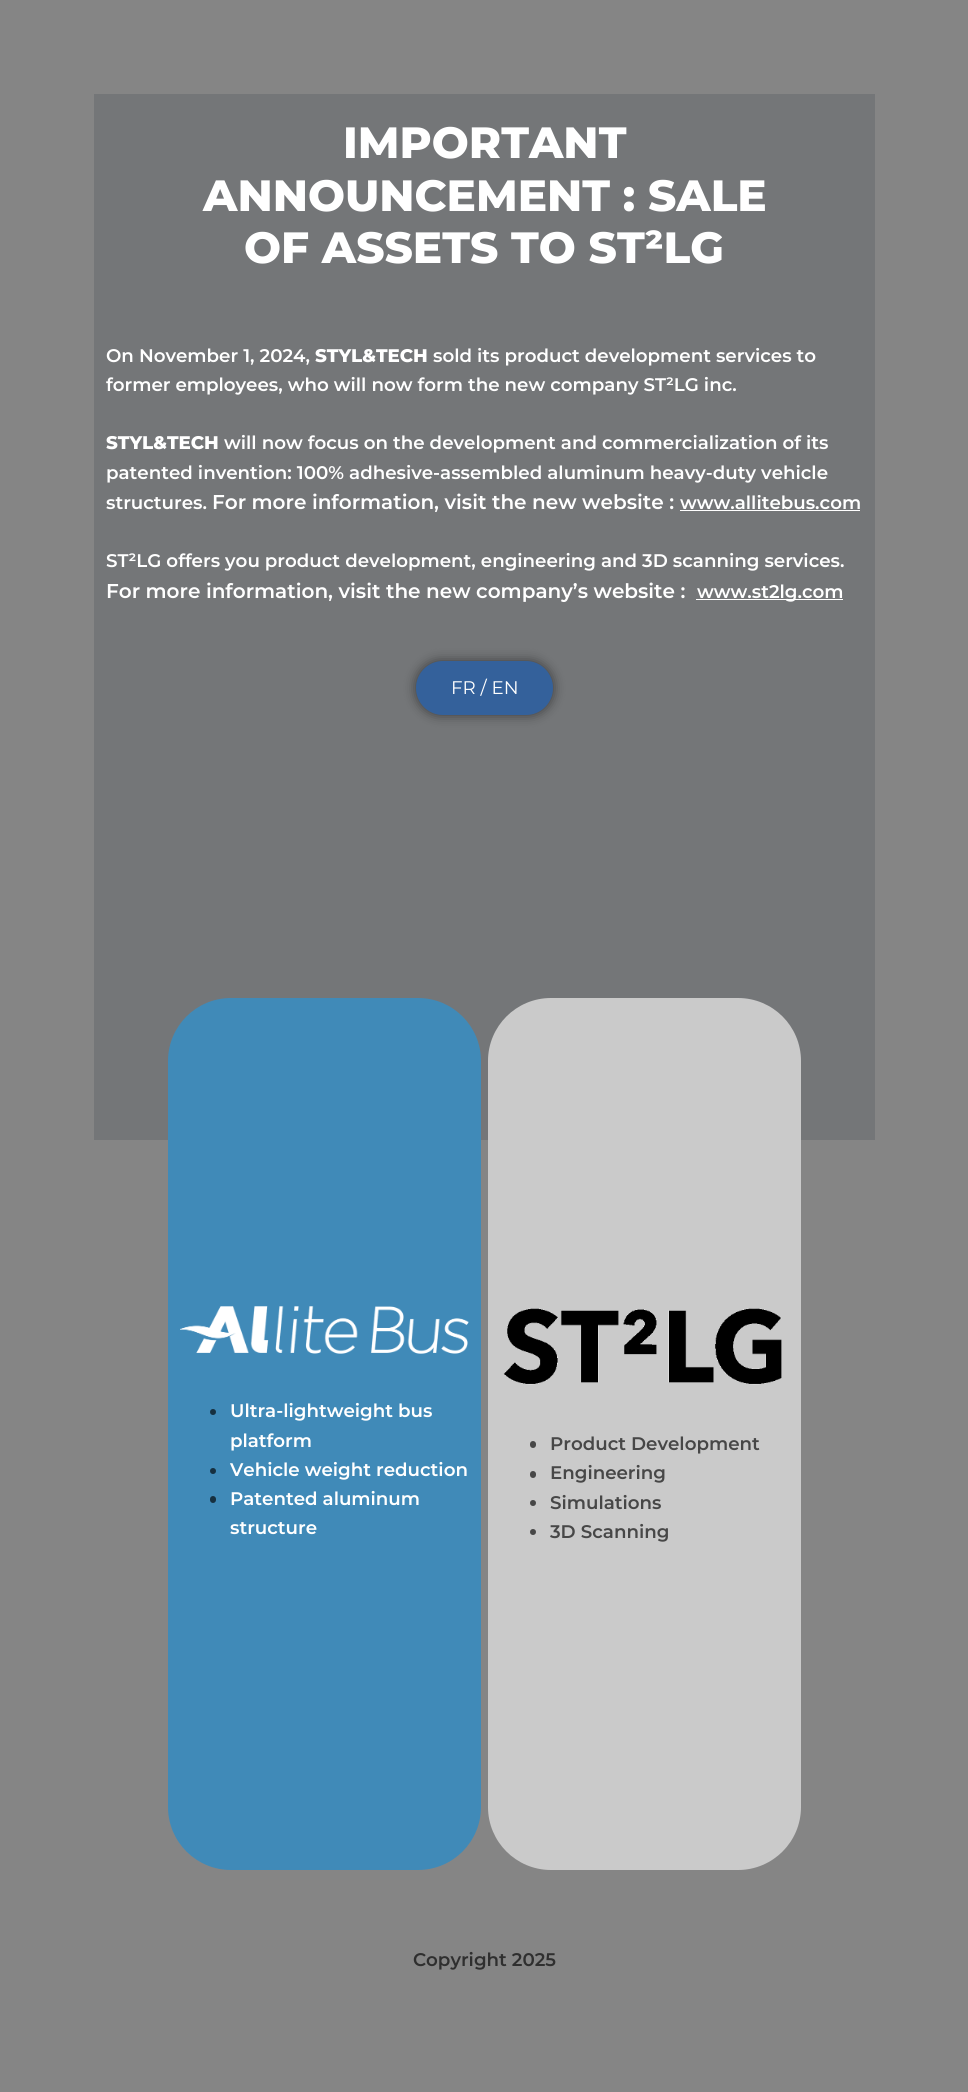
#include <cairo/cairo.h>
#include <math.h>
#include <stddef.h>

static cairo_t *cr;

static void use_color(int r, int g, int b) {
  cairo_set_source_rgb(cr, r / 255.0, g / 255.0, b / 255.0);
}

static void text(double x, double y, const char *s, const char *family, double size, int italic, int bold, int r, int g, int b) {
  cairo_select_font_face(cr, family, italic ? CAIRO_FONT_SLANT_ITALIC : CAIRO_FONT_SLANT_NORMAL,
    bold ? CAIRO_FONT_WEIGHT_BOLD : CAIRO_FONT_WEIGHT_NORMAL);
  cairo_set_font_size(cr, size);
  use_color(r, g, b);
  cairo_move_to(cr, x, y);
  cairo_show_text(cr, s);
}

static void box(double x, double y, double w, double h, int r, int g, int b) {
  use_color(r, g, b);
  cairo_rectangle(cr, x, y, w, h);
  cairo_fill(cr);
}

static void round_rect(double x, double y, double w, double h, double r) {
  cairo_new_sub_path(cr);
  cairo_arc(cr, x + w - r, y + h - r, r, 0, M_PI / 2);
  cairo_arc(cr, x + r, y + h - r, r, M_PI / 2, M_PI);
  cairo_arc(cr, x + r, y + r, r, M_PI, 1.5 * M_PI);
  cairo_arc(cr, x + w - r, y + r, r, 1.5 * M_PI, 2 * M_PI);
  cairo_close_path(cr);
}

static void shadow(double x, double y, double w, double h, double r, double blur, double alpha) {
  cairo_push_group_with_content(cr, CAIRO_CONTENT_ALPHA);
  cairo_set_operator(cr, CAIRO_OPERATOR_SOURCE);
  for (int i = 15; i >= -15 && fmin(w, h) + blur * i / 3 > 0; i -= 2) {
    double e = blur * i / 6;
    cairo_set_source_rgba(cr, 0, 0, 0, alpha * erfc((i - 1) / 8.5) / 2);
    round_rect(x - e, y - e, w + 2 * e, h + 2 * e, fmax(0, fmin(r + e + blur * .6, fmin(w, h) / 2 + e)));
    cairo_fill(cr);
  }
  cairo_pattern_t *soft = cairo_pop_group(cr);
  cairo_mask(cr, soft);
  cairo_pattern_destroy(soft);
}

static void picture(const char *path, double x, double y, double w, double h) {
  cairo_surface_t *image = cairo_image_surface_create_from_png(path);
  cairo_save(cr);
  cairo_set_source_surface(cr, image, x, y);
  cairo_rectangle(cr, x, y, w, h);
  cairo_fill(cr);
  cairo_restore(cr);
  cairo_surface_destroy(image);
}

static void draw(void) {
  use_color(133, 133, 133);
  cairo_paint(cr);
  box(94, 94, 781, 1046, 116, 118, 120);
  box(680, 510, 180, 1, 255, 255, 255);
  box(696, 599, 147, 1, 255, 255, 255);
  use_color(0, 0, 0);
  shadow(416, 661, 137, 54, 27, 6, 0.5);
  use_color(52, 97, 155);
  round_rect(416, 661, 137, 54, 27);
  cairo_fill(cr);
  use_color(64, 138, 184);
  round_rect(168, 998, 313, 872, 63);
  cairo_fill(cr);
  picture("img_01.png", 180, 1306, 289, 48);
  use_color(22, 48, 64);
  cairo_arc(cr, 213, 1412, 3, 0, 2 * M_PI);
  cairo_fill(cr);
  cairo_arc(cr, 213, 1471, 3, 0, 2 * M_PI);
  cairo_fill(cr);
  round_rect(210, 1496, 6, 7, 3);
  cairo_fill(cr);
  use_color(202, 202, 202);
  round_rect(488, 998, 313, 872, 63);
  cairo_fill(cr);
  picture("img_02.png", 503, 1308, 279, 77);
  use_color(71, 71, 71);
  round_rect(530, 1441, 6, 7, 3);
  cairo_fill(cr);
  round_rect(530, 1471, 6, 7, 3);
  cairo_fill(cr);
  cairo_arc(cr, 533, 1503, 3, 0, 2 * M_PI);
  cairo_fill(cr);
  cairo_arc(cr, 533, 1532, 3, 0, 2 * M_PI);
  cairo_fill(cr);
  text(343, 158, "IMPORTANT", "Montserrat ExtraBold", 43.75, 0, 0, 255, 255, 255);
  text(203, 211, "ANNOUNCEMENT : SALE", "Montserrat ExtraBold", 43.75, 0, 0, 255, 255, 255);
  text(244, 263, "OF ASSETS TO ST²LG", "Montserrat ExtraBold", 43.75, 0, 0, 255, 255, 255);
  text(106, 362, "On November 1, 2024,", "Montserrat SemiBold", 18.25, 0, 0, 255, 255, 255);
  text(315, 362, "STYL&TECH", "Montserrat ExtraBold", 18.25, 0, 0, 255, 255, 255);
  text(433, 362, "sold its product development services to", "Montserrat SemiBold", 18.25, 0, 0, 255, 255, 255);
  text(106, 391, "former employees, who will now form the new company ST²LG inc.", "Montserrat SemiBold", 18.25, 0, 0, 255, 255, 255);
  text(106, 449, "STYL&TECH", "Montserrat ExtraBold", 18.25, 0, 0, 255, 255, 255);
  text(224, 449, "will now focus on the development and commercialization of its", "Montserrat SemiBold", 18.25, 0, 0, 255, 255, 255);
  text(106, 479, "patented invention: 100% adhesive-assembled aluminum heavy-duty vehicle", "Montserrat SemiBold", 18.25, 0, 0, 255, 255, 255);
  text(106, 509, "structures.", "Montserrat SemiBold", 18.25, 0, 0, 255, 255, 255);
  text(212, 509, "For more information, visit the new website :", "Montserrat SemiBold", 20, 0, 0, 255, 255, 255);
  text(680, 509, "www.allitebus.com", "Montserrat SemiBold", 18.25, 0, 0, 255, 255, 255);
  text(106, 567, "ST²LG offers you product development, engineering and 3D scanning services.", "Montserrat SemiBold", 18.25, 0, 0, 255, 255, 255);
  text(106, 598, "For more information, visit the new company’s website :", "Montserrat SemiBold", 20, 0, 0, 255, 255, 255);
  text(697, 598, "www.st2lg.com", "Montserrat SemiBold", 18.25, 0, 0, 255, 255, 255);
  text(451, 694, "FR / EN", "Montserrat", 18.25, 0, 0, 255, 255, 255);
  text(230, 1417, "Ultra-lightweight bus", "Montserrat SemiBold", 18.25, 0, 0, 255, 255, 255);
  text(230, 1447, "platform", "Montserrat SemiBold", 18.25, 0, 0, 255, 255, 255);
  text(230, 1476, "Vehicle weight reduction", "Montserrat SemiBold", 18.25, 0, 0, 255, 255, 255);
  text(230, 1505, "Patented aluminum", "Montserrat SemiBold", 18.25, 0, 0, 255, 255, 255);
  text(230, 1534, "structure", "Montserrat SemiBold", 18.25, 0, 0, 255, 255, 255);
  text(550, 1450, "Product Development", "Montserrat SemiBold", 18.25, 0, 0, 71, 71, 71);
  text(550, 1479, "Engineering", "Montserrat SemiBold", 18.25, 0, 0, 71, 71, 71);
  text(550, 1509, "Simulations", "Montserrat SemiBold", 18.25, 0, 0, 71, 71, 71);
  text(550, 1538, "3D Scanning", "Montserrat SemiBold", 18.25, 0, 0, 71, 71, 71);
  text(413, 1966, "Copyright 2025", "Montserrat SemiBold", 18.25, 0, 0, 47, 47, 47);
}

int main(void) {
  cairo_surface_t *surface = cairo_image_surface_create(CAIRO_FORMAT_RGB24, 968, 2092);
  cr = cairo_create(surface);
  cairo_font_options_t *options = cairo_font_options_create();
  cairo_font_options_set_hint_metrics(options, CAIRO_HINT_METRICS_OFF);
  cairo_font_options_set_hint_style(options, CAIRO_HINT_STYLE_NONE);
  cairo_set_font_options(cr, options);
  cairo_set_miter_limit(cr, 4);
  draw();
  cairo_surface_write_to_png(surface, "out.png");
  cairo_font_options_destroy(options);
  cairo_destroy(cr);
  cairo_surface_destroy(surface);
  return 0;
}
